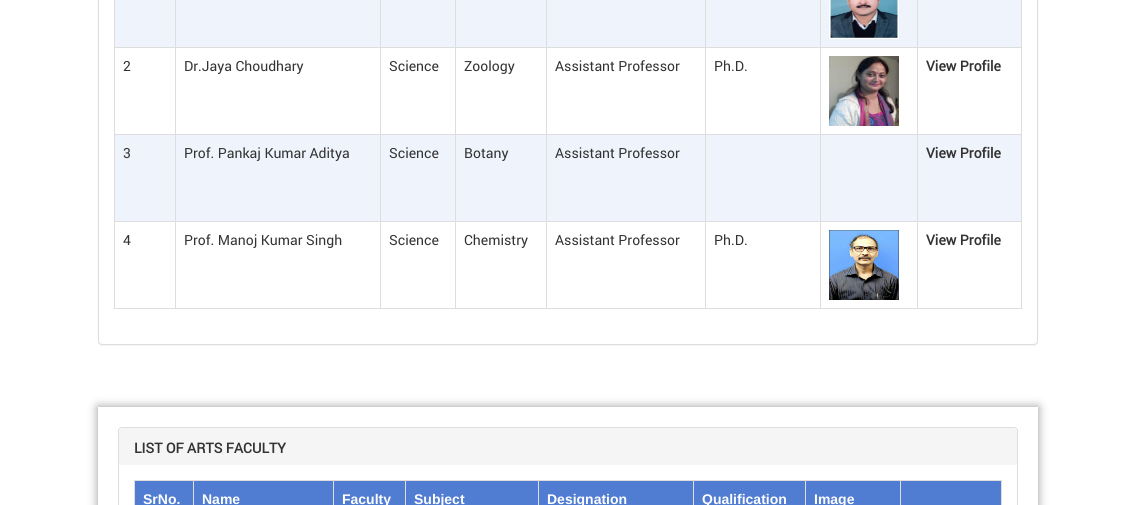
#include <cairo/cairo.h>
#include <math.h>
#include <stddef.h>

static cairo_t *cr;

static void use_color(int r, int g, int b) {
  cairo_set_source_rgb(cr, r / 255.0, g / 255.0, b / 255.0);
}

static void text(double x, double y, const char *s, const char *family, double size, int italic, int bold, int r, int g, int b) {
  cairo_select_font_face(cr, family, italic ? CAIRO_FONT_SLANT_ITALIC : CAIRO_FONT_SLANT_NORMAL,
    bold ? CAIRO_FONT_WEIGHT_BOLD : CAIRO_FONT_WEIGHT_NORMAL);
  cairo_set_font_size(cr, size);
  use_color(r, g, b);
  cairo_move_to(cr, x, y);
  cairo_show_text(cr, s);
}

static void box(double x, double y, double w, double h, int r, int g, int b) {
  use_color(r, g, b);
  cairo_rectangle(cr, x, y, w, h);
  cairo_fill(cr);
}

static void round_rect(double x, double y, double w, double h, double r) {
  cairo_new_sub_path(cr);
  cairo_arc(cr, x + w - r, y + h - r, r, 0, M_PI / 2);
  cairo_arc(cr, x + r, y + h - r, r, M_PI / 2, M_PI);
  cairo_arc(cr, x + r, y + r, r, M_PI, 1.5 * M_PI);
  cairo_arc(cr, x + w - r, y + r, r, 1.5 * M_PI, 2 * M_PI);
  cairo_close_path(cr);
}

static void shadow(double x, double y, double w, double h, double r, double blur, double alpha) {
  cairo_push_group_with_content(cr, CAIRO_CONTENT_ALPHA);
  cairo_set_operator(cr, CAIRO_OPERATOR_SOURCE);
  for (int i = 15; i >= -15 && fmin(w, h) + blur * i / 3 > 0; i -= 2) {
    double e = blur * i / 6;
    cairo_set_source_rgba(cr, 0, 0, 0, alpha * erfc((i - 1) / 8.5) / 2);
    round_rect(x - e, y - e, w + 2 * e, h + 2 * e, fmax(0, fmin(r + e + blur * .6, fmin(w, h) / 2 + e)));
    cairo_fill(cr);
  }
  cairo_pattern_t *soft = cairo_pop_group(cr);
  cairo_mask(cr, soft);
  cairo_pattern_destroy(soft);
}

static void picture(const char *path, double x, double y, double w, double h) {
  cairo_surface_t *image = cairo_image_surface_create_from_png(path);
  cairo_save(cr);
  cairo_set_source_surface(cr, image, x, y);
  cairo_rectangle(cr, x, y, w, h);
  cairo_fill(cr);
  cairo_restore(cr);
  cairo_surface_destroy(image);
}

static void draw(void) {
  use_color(255, 255, 255);
  cairo_paint(cr);
  use_color(0, 0, 0);
  shadow(98, -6, 940, 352, 4, 0.5, 0.05);
  use_color(255, 255, 255);
  round_rect(98.5, -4.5, 939, 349, 3.5);
  cairo_fill_preserve(cr);
  use_color(221, 221, 221);
  cairo_set_line_width(cr, 1);
  cairo_stroke(cr);
  box(1021, 0, 1, 309, 221, 221, 221);
  box(114, 308, 908, 1, 221, 221, 221);
  box(114, 0, 1, 309, 221, 221, 221);
  box(115, 0, 906, 47, 239, 243, 251);
  box(917, 47, 105, 1, 221, 221, 221);
  box(917, 134, 105, 1, 221, 221, 221);
  box(115, 135, 906, 86, 239, 243, 251);
  box(917, 221, 105, 1, 221, 221, 221);
  box(917, 221, 1, 88, 221, 221, 221);
  box(820, 221, 98, 1, 221, 221, 221);
  box(917, 134, 1, 88, 221, 221, 221);
  box(820, 134, 98, 1, 221, 221, 221);
  box(917, 47, 1, 88, 221, 221, 221);
  box(820, 47, 98, 1, 221, 221, 221);
  box(820, 221, 1, 88, 221, 221, 221);
  box(705, 221, 116, 1, 221, 221, 221);
  box(820, 134, 1, 88, 221, 221, 221);
  box(705, 134, 116, 1, 221, 221, 221);
  box(820, 47, 1, 88, 221, 221, 221);
  box(705, 47, 116, 1, 221, 221, 221);
  box(705, 221, 1, 88, 221, 221, 221);
  box(546, 221, 160, 1, 221, 221, 221);
  box(705, 134, 1, 88, 221, 221, 221);
  box(546, 134, 160, 1, 221, 221, 221);
  box(705, 47, 1, 88, 221, 221, 221);
  box(546, 47, 160, 1, 221, 221, 221);
  box(546, 221, 1, 88, 221, 221, 221);
  box(455, 221, 92, 1, 221, 221, 221);
  box(546, 134, 1, 88, 221, 221, 221);
  box(455, 134, 92, 1, 221, 221, 221);
  box(546, 47, 1, 88, 221, 221, 221);
  box(455, 47, 92, 1, 221, 221, 221);
  box(455, 221, 1, 88, 221, 221, 221);
  box(380, 221, 76, 1, 221, 221, 221);
  box(455, 134, 1, 88, 221, 221, 221);
  box(380, 134, 76, 1, 221, 221, 221);
  box(455, 47, 1, 88, 221, 221, 221);
  box(380, 47, 76, 1, 221, 221, 221);
  box(380, 221, 1, 88, 221, 221, 221);
  box(175, 221, 206, 1, 221, 221, 221);
  box(380, 134, 1, 88, 221, 221, 221);
  box(175, 134, 206, 1, 221, 221, 221);
  box(380, 47, 1, 88, 221, 221, 221);
  box(175, 47, 206, 1, 221, 221, 221);
  box(175, 221, 1, 88, 221, 221, 221);
  box(114, 221, 62, 1, 221, 221, 221);
  box(175, 134, 1, 88, 221, 221, 221);
  box(114, 134, 62, 1, 221, 221, 221);
  box(175, 47, 1, 88, 221, 221, 221);
  box(114, 47, 62, 1, 221, 221, 221);
  box(175, 0, 1, 48, 221, 221, 221);
  box(380, 0, 1, 48, 221, 221, 221);
  box(455, 0, 1, 48, 221, 221, 221);
  box(546, 0, 1, 48, 221, 221, 221);
  box(705, 0, 1, 48, 221, 221, 221);
  box(820, 0, 1, 48, 221, 221, 221);
  picture("img_01.png", 829, 0, 70, 39);
  box(917, 0, 1, 48, 221, 221, 221);
  picture("img_02.png", 829, 56, 70, 70);
  picture("img_03.png", 829, 230, 70, 70);
  cairo_save(cr);
  cairo_set_fill_rule(cr, CAIRO_FILL_RULE_EVEN_ODD);
  cairo_new_path(cr);
  cairo_move_to(cr, 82, 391);
  cairo_line_to(cr, 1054, 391);
  cairo_line_to(cr, 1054, 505);
  cairo_line_to(cr, 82, 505);
  cairo_close_path(cr);
  cairo_move_to(cr, 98, 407);
  cairo_line_to(cr, 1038, 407);
  cairo_line_to(cr, 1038, 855);
  cairo_line_to(cr, 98, 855);
  cairo_close_path(cr);
  cairo_clip(cr);
  use_color(153, 153, 153);
  shadow(98, 407, 940, 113, 0, 5, 1);
  cairo_restore(cr);
  round_rect(118.5, 427.5, 899, 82, 3.5);
  cairo_stroke(cr);
  use_color(245, 245, 245);
  cairo_new_path(cr);
  cairo_move_to(cr, 122, 428);
  cairo_line_to(cr, 1014, 428);
  cairo_curve_to(cr, 1015.5, 428, 1017, 429.5, 1017, 431);
  cairo_line_to(cr, 1017, 465);
  cairo_line_to(cr, 119, 465);
  cairo_line_to(cr, 119, 431);
  cairo_curve_to(cr, 119, 429.5, 120.5, 428, 122, 428);
  cairo_close_path(cr);
  cairo_fill(cr);
  box(134, 480, 868, 1, 221, 221, 221);
  box(1001, 480, 1, 25, 221, 221, 221);
  box(134, 480, 1, 25, 221, 221, 221);
  box(135, 481, 866, 24, 80, 124, 209);
  box(193, 480, 1, 25, 221, 221, 221);
  box(333, 480, 1, 25, 221, 221, 221);
  box(405, 480, 1, 25, 221, 221, 221);
  box(538, 480, 1, 25, 221, 221, 221);
  box(693, 480, 1, 25, 221, 221, 221);
  box(805, 480, 1, 25, 221, 221, 221);
  box(900, 480, 1, 25, 221, 221, 221);
  text(123, 71, "2", "Roboto", 14, 0, 0, 51, 51, 51);
  text(184, 71, "Dr.Jaya Choudhary", "Roboto", 14, 0, 0, 51, 51, 51);
  text(389, 71, "Science", "Roboto", 14, 0, 0, 51, 51, 51);
  text(464, 71, "Zoology", "Roboto", 14, 0, 0, 51, 51, 51);
  text(555, 71, "Assistant Professor", "Roboto", 14, 0, 0, 51, 51, 51);
  text(714, 71, "Ph.D.", "Roboto", 14, 0, 0, 51, 51, 51);
  text(926, 71, "View Profile", "Roboto", 14, 0, 1, 51, 51, 51);
  text(123, 158, "3", "Roboto", 14, 0, 0, 51, 51, 51);
  text(184, 158, "Prof. Pankaj Kumar Aditya", "Roboto", 14, 0, 0, 51, 51, 51);
  text(389, 158, "Science", "Roboto", 14, 0, 0, 51, 51, 51);
  text(464, 158, "Botany", "Roboto", 14, 0, 0, 51, 51, 51);
  text(555, 158, "Assistant Professor", "Roboto", 14, 0, 0, 51, 51, 51);
  text(926, 158, "View Profile", "Roboto", 14, 0, 1, 51, 51, 51);
  text(123, 245, "4", "Roboto", 14, 0, 0, 51, 51, 51);
  text(184, 245, "Prof. Manoj Kumar Singh", "Roboto", 14, 0, 0, 51, 51, 51);
  text(389, 245, "Science", "Roboto", 14, 0, 0, 51, 51, 51);
  text(464, 245, "Chemistry", "Roboto", 14, 0, 0, 51, 51, 51);
  text(555, 245, "Assistant Professor", "Roboto", 14, 0, 0, 51, 51, 51);
  text(714, 245, "Ph.D.", "Roboto", 14, 0, 0, 51, 51, 51);
  text(926, 245, "View Profile", "Roboto", 14, 0, 1, 51, 51, 51);
  text(134, 453, "LIST OF ARTS FACULTY", "Roboto", 14, 0, 1, 51, 51, 51);
  text(143, 504, "SrNo.", "Liberation Sans", 14, 0, 1, 255, 255, 255);
  text(202, 504, "Name", "Liberation Sans", 14, 0, 1, 255, 255, 255);
  text(342, 504, "Faculty", "Liberation Sans", 14, 0, 1, 255, 255, 255);
  text(414, 504, "Subject", "Liberation Sans", 14, 0, 1, 255, 255, 255);
  text(547, 504, "Designation", "Liberation Sans", 14, 0, 1, 255, 255, 255);
  text(702, 504, "Qualification", "Liberation Sans", 14, 0, 1, 255, 255, 255);
  text(814, 504, "Image", "Liberation Sans", 14, 0, 1, 255, 255, 255);
}

int main(void) {
  cairo_surface_t *surface = cairo_image_surface_create(CAIRO_FORMAT_RGB24, 1135, 505);
  cr = cairo_create(surface);
  cairo_font_options_t *options = cairo_font_options_create();
  cairo_font_options_set_hint_metrics(options, CAIRO_HINT_METRICS_OFF);
  cairo_font_options_set_hint_style(options, CAIRO_HINT_STYLE_NONE);
  cairo_set_font_options(cr, options);
  cairo_set_miter_limit(cr, 4);
  draw();
  cairo_surface_write_to_png(surface, "out.png");
  cairo_font_options_destroy(options);
  cairo_destroy(cr);
  cairo_surface_destroy(surface);
  return 0;
}
